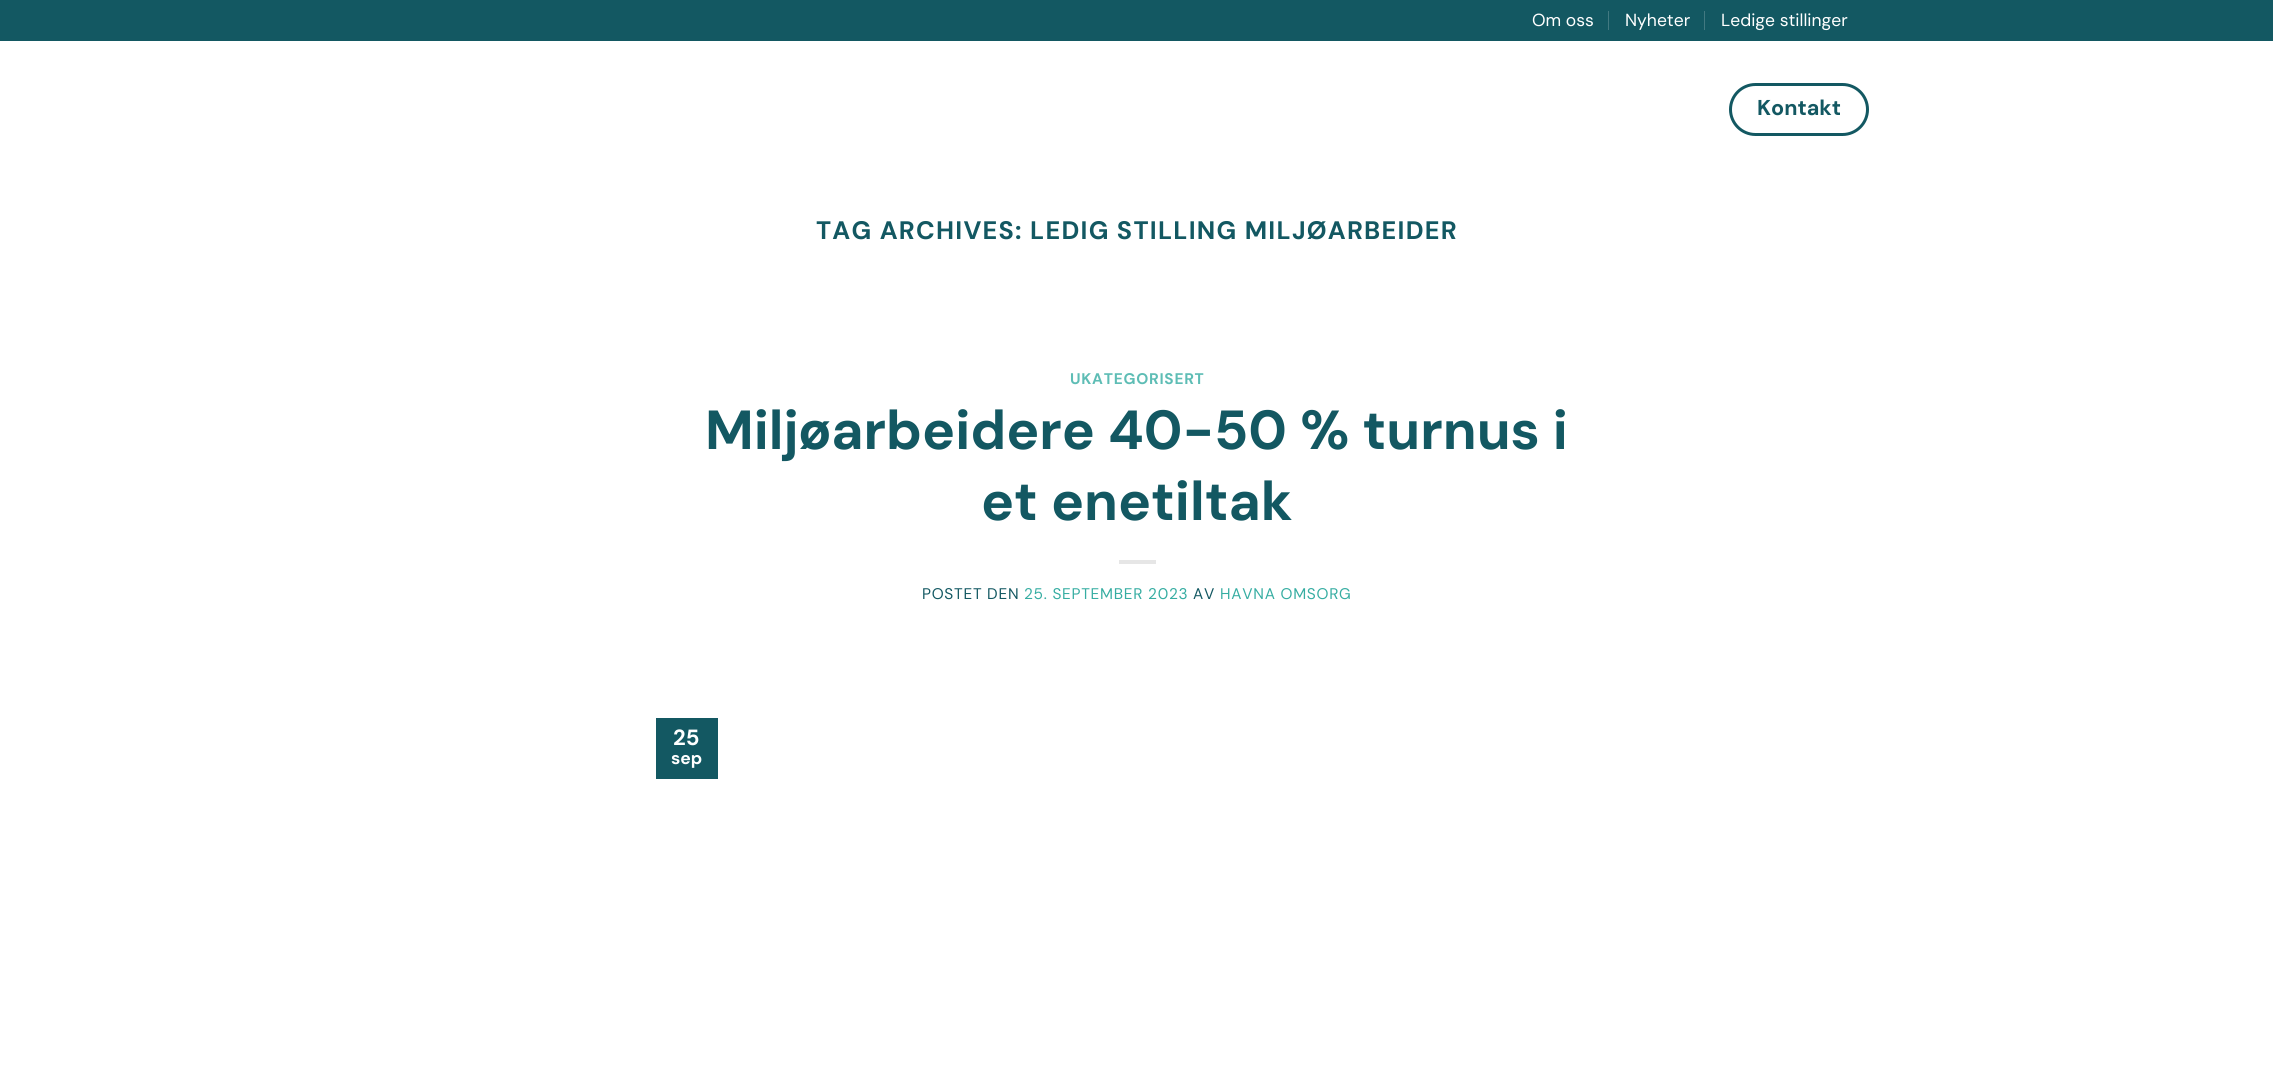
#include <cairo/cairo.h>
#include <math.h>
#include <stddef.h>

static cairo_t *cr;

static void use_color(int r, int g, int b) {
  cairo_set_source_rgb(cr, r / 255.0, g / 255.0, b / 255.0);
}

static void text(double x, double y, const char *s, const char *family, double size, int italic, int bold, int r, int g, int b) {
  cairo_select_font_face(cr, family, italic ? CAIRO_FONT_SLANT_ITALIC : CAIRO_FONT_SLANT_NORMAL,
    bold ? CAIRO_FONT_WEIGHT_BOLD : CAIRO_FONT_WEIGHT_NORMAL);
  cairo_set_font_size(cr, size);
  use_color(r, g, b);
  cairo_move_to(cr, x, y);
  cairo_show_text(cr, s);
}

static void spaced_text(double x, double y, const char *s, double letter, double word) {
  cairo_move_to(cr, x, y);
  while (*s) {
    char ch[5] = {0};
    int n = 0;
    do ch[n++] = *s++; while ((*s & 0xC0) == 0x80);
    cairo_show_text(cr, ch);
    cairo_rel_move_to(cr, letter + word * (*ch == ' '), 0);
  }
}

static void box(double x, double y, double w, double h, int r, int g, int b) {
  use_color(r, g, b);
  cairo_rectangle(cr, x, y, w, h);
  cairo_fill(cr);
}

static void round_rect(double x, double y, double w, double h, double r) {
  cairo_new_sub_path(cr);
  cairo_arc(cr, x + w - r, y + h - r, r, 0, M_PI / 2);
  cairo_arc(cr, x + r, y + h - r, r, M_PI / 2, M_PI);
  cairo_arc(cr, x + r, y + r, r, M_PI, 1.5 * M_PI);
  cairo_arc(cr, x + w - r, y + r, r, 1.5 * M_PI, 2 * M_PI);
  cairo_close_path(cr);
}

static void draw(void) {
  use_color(255, 255, 255);
  cairo_paint(cr);
  box(0, 0, 2273, 41, 19, 88, 98);
  box(1608, 11, 1, 19, 66, 121, 129);
  box(1704, 11, 1, 19, 66, 121, 129);
  round_rect(1730.5, 84.5, 137, 50, 25);
  use_color(19, 88, 98);
  cairo_set_line_width(cr, 3);
  cairo_stroke(cr);
  box(1119, 560, 37, 4, 230, 230, 230);
  box(656, 718, 62, 61, 19, 88, 98);
  text(1532, 26, "Om oss", "DM Sans", 17.5, 0, 0, 255, 255, 255);
  text(1625, 26, "Nyheter", "DM Sans", 17.5, 0, 0, 255, 255, 255);
  text(1721, 26, "Ledige stillinger", "DM Sans", 17.5, 0, 0, 255, 255, 255);
  text(1757, 115, "Kontakt", "DM Sans", 21.5, 0, 1, 19, 88, 98);
  cairo_set_font_size(cr, 25.3);
  spaced_text(816, 239, "TAG ARCHIVES: LEDIG STILLING MILJØARBEIDER", 1.25, 0);
  cairo_set_font_size(cr, 15.4);
  use_color(94, 189, 181);
  spaced_text(1070, 384, "UKATEGORISERT", 0.75, 0);
  text(705, 449, "Miljøarbeidere 40-50 % turnus i", "DM Sans", 55, 0, 1, 19, 88, 98);
  text(981, 520, "et enetiltak", "DM Sans", 55, 0, 1, 19, 88, 98);
  cairo_select_font_face(cr, "DM Sans", CAIRO_FONT_SLANT_NORMAL, CAIRO_FONT_WEIGHT_NORMAL);
  cairo_set_font_size(cr, 15.4);
  spaced_text(922, 599, "POSTET DEN", 0.75, 0);
  use_color(54, 173, 162);
  spaced_text(1024, 599, "25. SEPTEMBER 2023", 0.75, 0);
  use_color(19, 88, 98);
  spaced_text(1193, 599, "AV", 0.75, 0);
  use_color(54, 173, 162);
  spaced_text(1220, 599, "HAVNA OMSORG", 0.75, 0);
  text(673, 745, "25", "DM Sans", 22, 0, 1, 255, 255, 255);
  text(671, 764, "sep", "DM Sans", 17.5, 0, 1, 255, 255, 255);
}

int main(void) {
  cairo_surface_t *surface = cairo_image_surface_create(CAIRO_FORMAT_RGB24, 2273, 1077);
  cr = cairo_create(surface);
  cairo_font_options_t *options = cairo_font_options_create();
  cairo_font_options_set_hint_metrics(options, CAIRO_HINT_METRICS_OFF);
  cairo_font_options_set_hint_style(options, CAIRO_HINT_STYLE_NONE);
  cairo_set_font_options(cr, options);
  cairo_set_miter_limit(cr, 4);
  draw();
  cairo_surface_write_to_png(surface, "out.png");
  cairo_font_options_destroy(options);
  cairo_destroy(cr);
  cairo_surface_destroy(surface);
  return 0;
}
